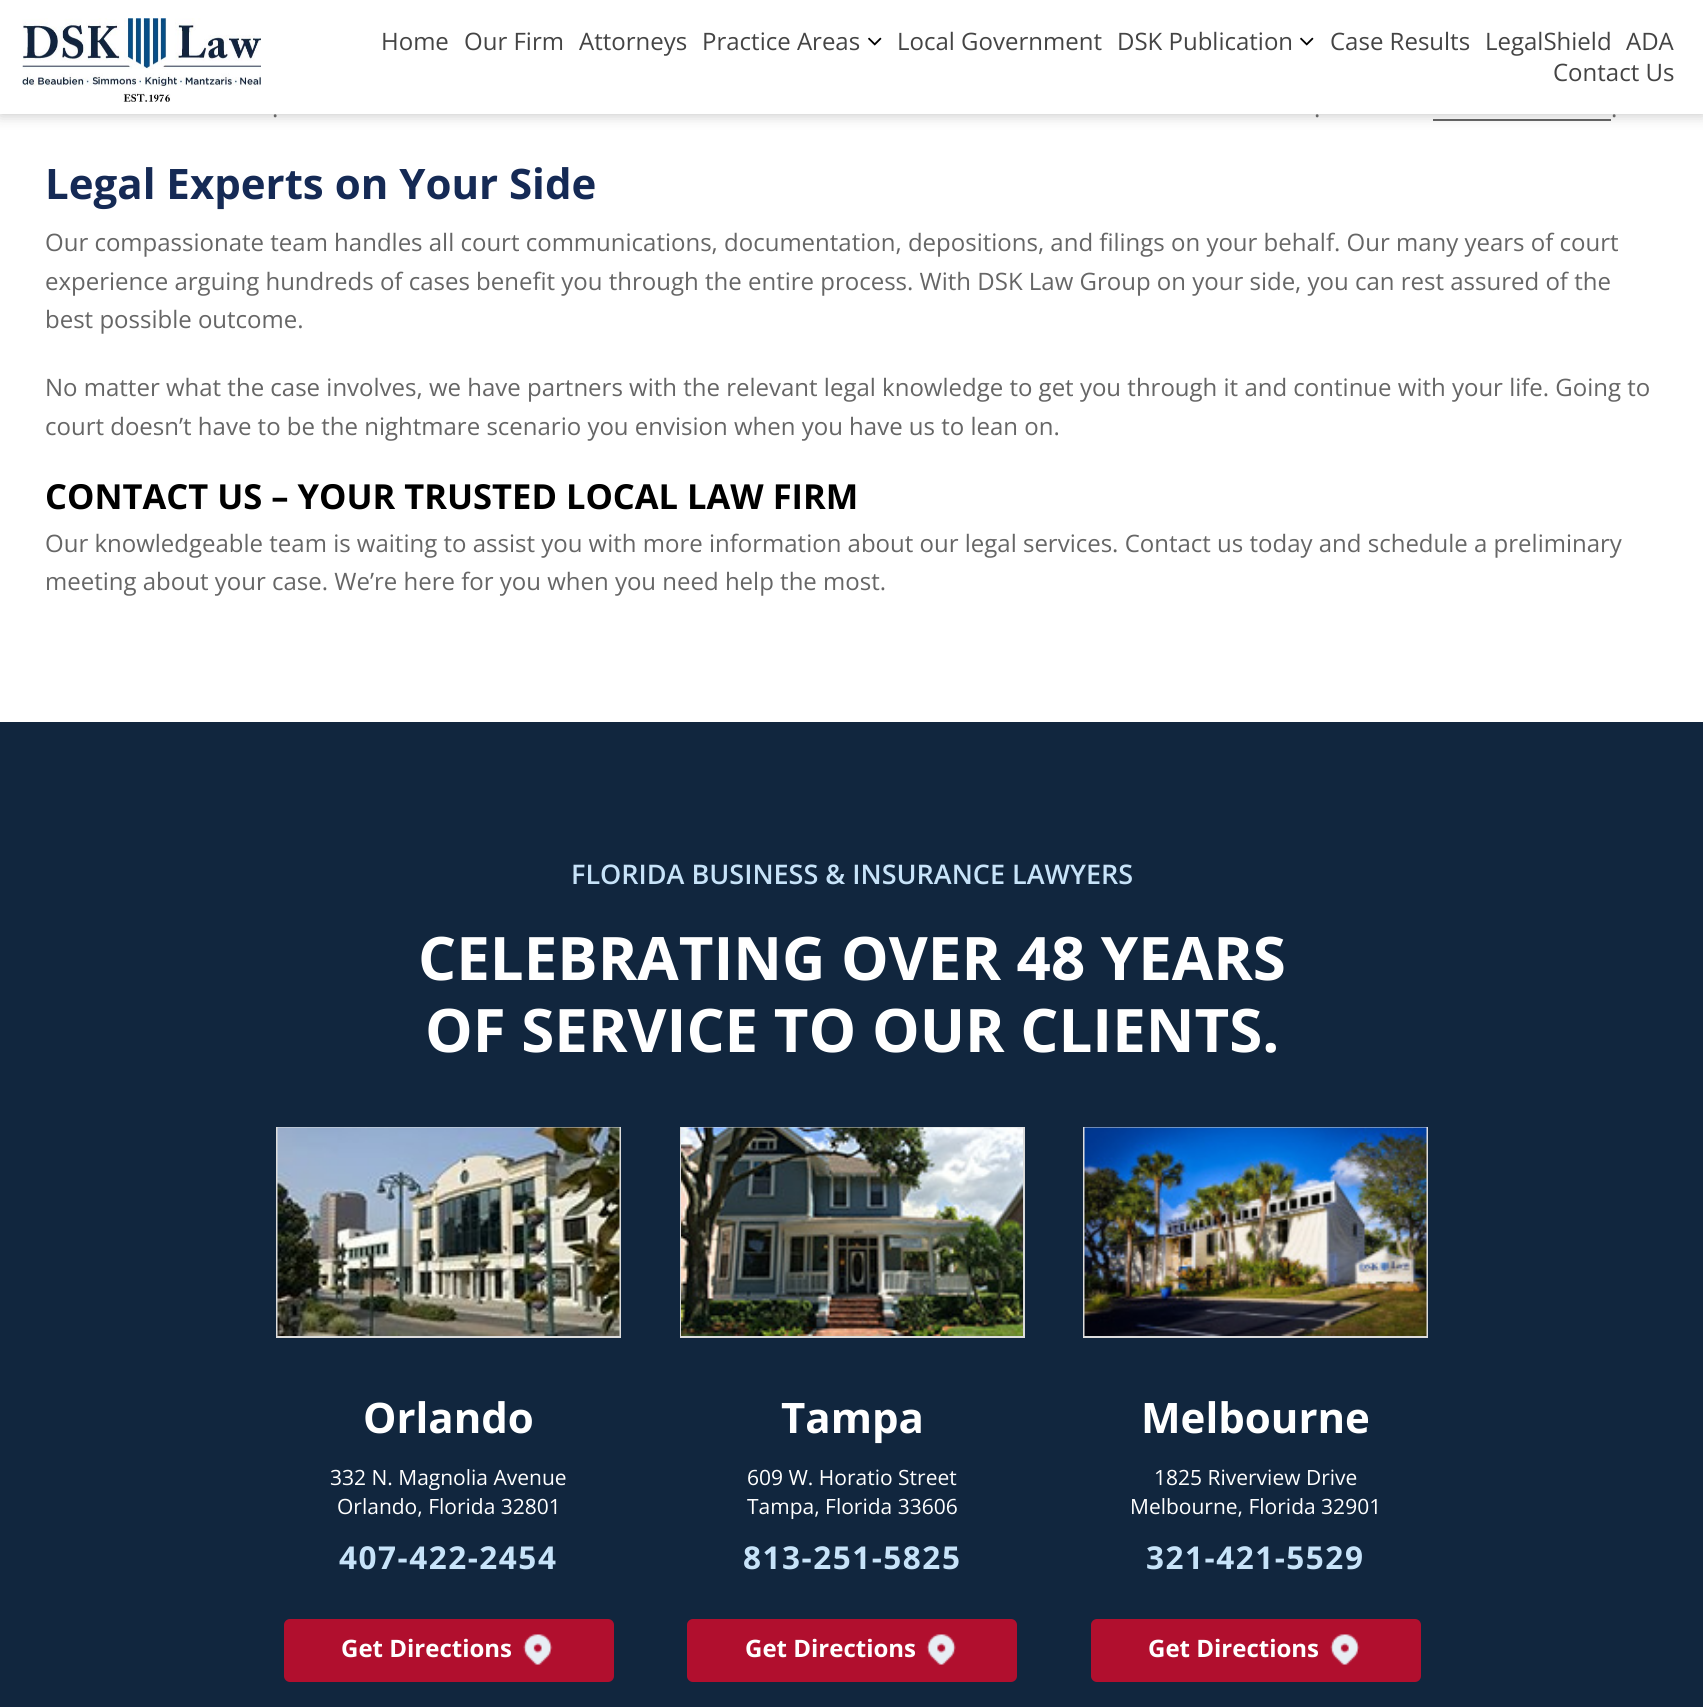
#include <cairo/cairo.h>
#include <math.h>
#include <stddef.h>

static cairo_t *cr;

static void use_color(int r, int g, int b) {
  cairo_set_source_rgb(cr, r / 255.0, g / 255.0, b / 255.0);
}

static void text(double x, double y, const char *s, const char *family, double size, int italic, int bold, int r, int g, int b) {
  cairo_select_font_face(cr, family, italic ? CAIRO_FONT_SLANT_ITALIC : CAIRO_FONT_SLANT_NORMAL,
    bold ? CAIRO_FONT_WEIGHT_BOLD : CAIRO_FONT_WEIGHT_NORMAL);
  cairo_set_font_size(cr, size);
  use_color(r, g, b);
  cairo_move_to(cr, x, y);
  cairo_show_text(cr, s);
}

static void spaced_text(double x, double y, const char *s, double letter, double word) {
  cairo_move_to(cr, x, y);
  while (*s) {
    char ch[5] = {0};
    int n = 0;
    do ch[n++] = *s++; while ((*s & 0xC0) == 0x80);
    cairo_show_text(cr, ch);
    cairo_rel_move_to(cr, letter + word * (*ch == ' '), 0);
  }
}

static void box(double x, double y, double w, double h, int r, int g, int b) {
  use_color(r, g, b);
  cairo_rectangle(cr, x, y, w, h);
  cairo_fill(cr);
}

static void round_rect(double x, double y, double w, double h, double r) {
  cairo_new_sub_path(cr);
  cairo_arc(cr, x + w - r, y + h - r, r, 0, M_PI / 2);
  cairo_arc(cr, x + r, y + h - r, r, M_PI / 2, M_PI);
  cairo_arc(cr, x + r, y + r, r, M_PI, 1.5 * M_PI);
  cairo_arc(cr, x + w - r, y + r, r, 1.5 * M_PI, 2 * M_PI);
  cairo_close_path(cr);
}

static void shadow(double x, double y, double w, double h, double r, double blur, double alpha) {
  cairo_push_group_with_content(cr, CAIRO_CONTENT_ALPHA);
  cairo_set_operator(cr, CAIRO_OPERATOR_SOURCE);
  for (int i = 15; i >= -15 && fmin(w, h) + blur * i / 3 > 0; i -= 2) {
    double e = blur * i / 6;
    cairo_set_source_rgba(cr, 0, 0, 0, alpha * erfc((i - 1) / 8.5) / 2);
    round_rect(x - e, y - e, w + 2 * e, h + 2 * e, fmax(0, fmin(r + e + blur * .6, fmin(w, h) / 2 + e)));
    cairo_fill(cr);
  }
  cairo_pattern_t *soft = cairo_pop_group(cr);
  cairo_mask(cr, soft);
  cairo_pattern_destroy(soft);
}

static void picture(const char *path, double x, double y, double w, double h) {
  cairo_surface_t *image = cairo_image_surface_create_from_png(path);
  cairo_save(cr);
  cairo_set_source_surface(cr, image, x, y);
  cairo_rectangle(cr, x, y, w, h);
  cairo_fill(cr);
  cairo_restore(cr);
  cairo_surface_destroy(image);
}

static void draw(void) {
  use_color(255, 255, 255);
  cairo_paint(cr);
  box(1433, 119, 178, 2, 102, 102, 102);
  use_color(0, 0, 0);
  shadow(0, 0, 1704, 114, 0, 7.5, 0.25);
  box(0, 0, 1703, 114, 255, 255, 255);
  picture("img_01.png", 22, 18, 239, 84);
  picture("img_02.png", 868, 37, 14, 9);
  picture("img_02.png", 1300, 37, 14, 9);
  box(0, 722, 1703, 985, 17, 38, 62);
  cairo_rectangle(cr, 277, 1128, 343, 209);
  use_color(221, 221, 221);
  cairo_stroke(cr);
  picture("img_03.png", 277, 1127, 343, 209);
  use_color(177, 15, 46);
  round_rect(285, 1620, 328, 61, 5);
  cairo_fill_preserve(cr);
  cairo_stroke(cr);
  picture("img_04.png", 523, 1634, 30, 31);
  cairo_rectangle(cr, 681, 1128, 343, 209);
  use_color(221, 221, 221);
  cairo_stroke(cr);
  picture("img_05.png", 681, 1127, 342, 209);
  use_color(177, 15, 46);
  round_rect(688, 1620, 328, 61, 5);
  cairo_fill_preserve(cr);
  cairo_stroke(cr);
  picture("img_06.png", 926, 1634, 30, 31);
  cairo_rectangle(cr, 1084, 1128, 343, 209);
  use_color(221, 221, 221);
  cairo_stroke(cr);
  picture("img_07.png", 1084, 1127, 343, 209);
  use_color(177, 15, 46);
  round_rect(1092, 1620, 328, 61, 5);
  cairo_fill_preserve(cr);
  cairo_stroke(cr);
  picture("img_08.png", 1330, 1634, 30, 31);
  text(381, 50, "Home", "Open Sans", 24, 0, 0, 68, 68, 68);
  text(464, 50, "Our Firm", "Open Sans", 24, 0, 0, 68, 68, 68);
  text(579, 50, "Attorneys", "Open Sans", 24, 0, 0, 68, 68, 68);
  text(702, 50, "Practice Areas", "Open Sans", 24, 0, 0, 68, 68, 68);
  text(897, 50, "Local Government", "Open Sans", 24, 0, 0, 68, 68, 68);
  text(1117, 50, "DSK Publication", "Open Sans", 24, 0, 0, 68, 68, 68);
  text(1330, 50, "Case Results", "Open Sans", 24, 0, 0, 68, 68, 68);
  text(1485, 50, "LegalShield", "Open Sans", 24, 0, 0, 68, 68, 68);
  text(1626, 50, "ADA", "Open Sans", 24, 0, 0, 68, 68, 68);
  text(1553, 81, "Contact Us", "Open Sans", 24, 0, 0, 68, 68, 68);
  text(272, 117, ".", "Open Sans", 24, 0, 0, 102, 102, 102);
  text(1314, 117, ".", "Open Sans", 24, 0, 0, 102, 102, 102);
  text(1611, 117, ".", "Open Sans", 24, 0, 0, 102, 102, 102);
  text(45, 199, "Legal Experts on Your Side", "Open Sans", 42, 0, 1, 21, 42, 85);
  text(45, 251, "Our compassionate team handles all court communications, documentation, depositions, and filings on your behalf. Our many years of court", "Open Sans", 24, 0, 0, 102, 102, 102);
  text(45, 290, "experience arguing hundreds of cases benefit you through the entire process. With DSK Law Group on your side, you can rest assured of the", "Open Sans", 24, 0, 0, 102, 102, 102);
  text(45, 328, "best possible outcome.", "Open Sans", 24, 0, 0, 102, 102, 102);
  text(45, 396, "No matter what the case involves, we have partners with the relevant legal knowledge to get you through it and continue with your life. Going to", "Open Sans", 24, 0, 0, 102, 102, 102);
  text(45, 435, "court doesn’t have to be the nightmare scenario you envision when you have us to lean on.", "Open Sans", 24, 0, 0, 102, 102, 102);
  text(45, 509, "CONTACT US – YOUR TRUSTED LOCAL LAW FIRM", "Open Sans", 34.5, 0, 1, 0, 0, 0);
  text(45, 552, "Our knowledgeable team is waiting to assist you with more information about our legal services. Contact us today and schedule a preliminary", "Open Sans", 24, 0, 0, 102, 102, 102);
  text(45, 590, "meeting about your case. We’re here for you when you need help the most.", "Open Sans", 24, 0, 0, 102, 102, 102);
  text(571, 884, "FLORIDA BUSINESS & INSURANCE LAWYERS", "Open Sans SemiBold", 27, 0, 0, 199, 227, 249);
  text(418, 980, "CELEBRATING OVER 48 YEARS", "Open Sans", 60, 0, 1, 255, 255, 255);
  text(425, 1052, "OF SERVICE TO OUR CLIENTS.", "Open Sans", 60, 0, 1, 255, 255, 255);
  text(363, 1433, "Orlando", "Open Sans", 42, 0, 1, 255, 255, 255);
  text(330, 1485, "332 N. Magnolia Avenue", "Open Sans", 21, 0, 0, 255, 255, 255);
  text(337, 1514, "Orlando, Florida 32801", "Open Sans", 21, 0, 0, 255, 255, 255);
  cairo_select_font_face(cr, "Open Sans", CAIRO_FONT_SLANT_NORMAL, CAIRO_FONT_WEIGHT_BOLD);
  cairo_set_font_size(cr, 31.5);
  use_color(199, 227, 249);
  spaced_text(339, 1569, "407-422-2454", 1.5, 0);
  text(341, 1657, "Get Directions", "Open Sans", 24, 0, 1, 255, 255, 255);
  text(781, 1433, "Tampa", "Open Sans", 42, 0, 1, 255, 255, 255);
  text(747, 1485, "609 W. Horatio Street", "Open Sans", 21, 0, 0, 255, 255, 255);
  text(747, 1514, "Tampa, Florida 33606", "Open Sans", 21, 0, 0, 255, 255, 255);
  cairo_select_font_face(cr, "Open Sans", CAIRO_FONT_SLANT_NORMAL, CAIRO_FONT_WEIGHT_BOLD);
  cairo_set_font_size(cr, 31.5);
  use_color(199, 227, 249);
  spaced_text(743, 1569, "813-251-5825", 1.5, 0);
  text(745, 1657, "Get Directions", "Open Sans", 24, 0, 1, 255, 255, 255);
  text(1141, 1433, "Melbourne", "Open Sans", 42, 0, 1, 255, 255, 255);
  text(1154, 1485, "1825 Riverview Drive", "Open Sans", 21, 0, 0, 255, 255, 255);
  text(1130, 1514, "Melbourne, Florida 32901", "Open Sans", 21, 0, 0, 255, 255, 255);
  cairo_select_font_face(cr, "Open Sans", CAIRO_FONT_SLANT_NORMAL, CAIRO_FONT_WEIGHT_BOLD);
  cairo_set_font_size(cr, 31.5);
  use_color(199, 227, 249);
  spaced_text(1146, 1569, "321-421-5529", 1.5, 0);
  text(1148, 1657, "Get Directions", "Open Sans", 24, 0, 1, 255, 255, 255);
}

int main(void) {
  cairo_surface_t *surface = cairo_image_surface_create(CAIRO_FORMAT_RGB24, 1703, 1707);
  cr = cairo_create(surface);
  cairo_font_options_t *options = cairo_font_options_create();
  cairo_font_options_set_hint_metrics(options, CAIRO_HINT_METRICS_OFF);
  cairo_font_options_set_hint_style(options, CAIRO_HINT_STYLE_NONE);
  cairo_set_font_options(cr, options);
  cairo_set_miter_limit(cr, 4);
  draw();
  cairo_surface_write_to_png(surface, "out.png");
  cairo_font_options_destroy(options);
  cairo_destroy(cr);
  cairo_surface_destroy(surface);
  return 0;
}
